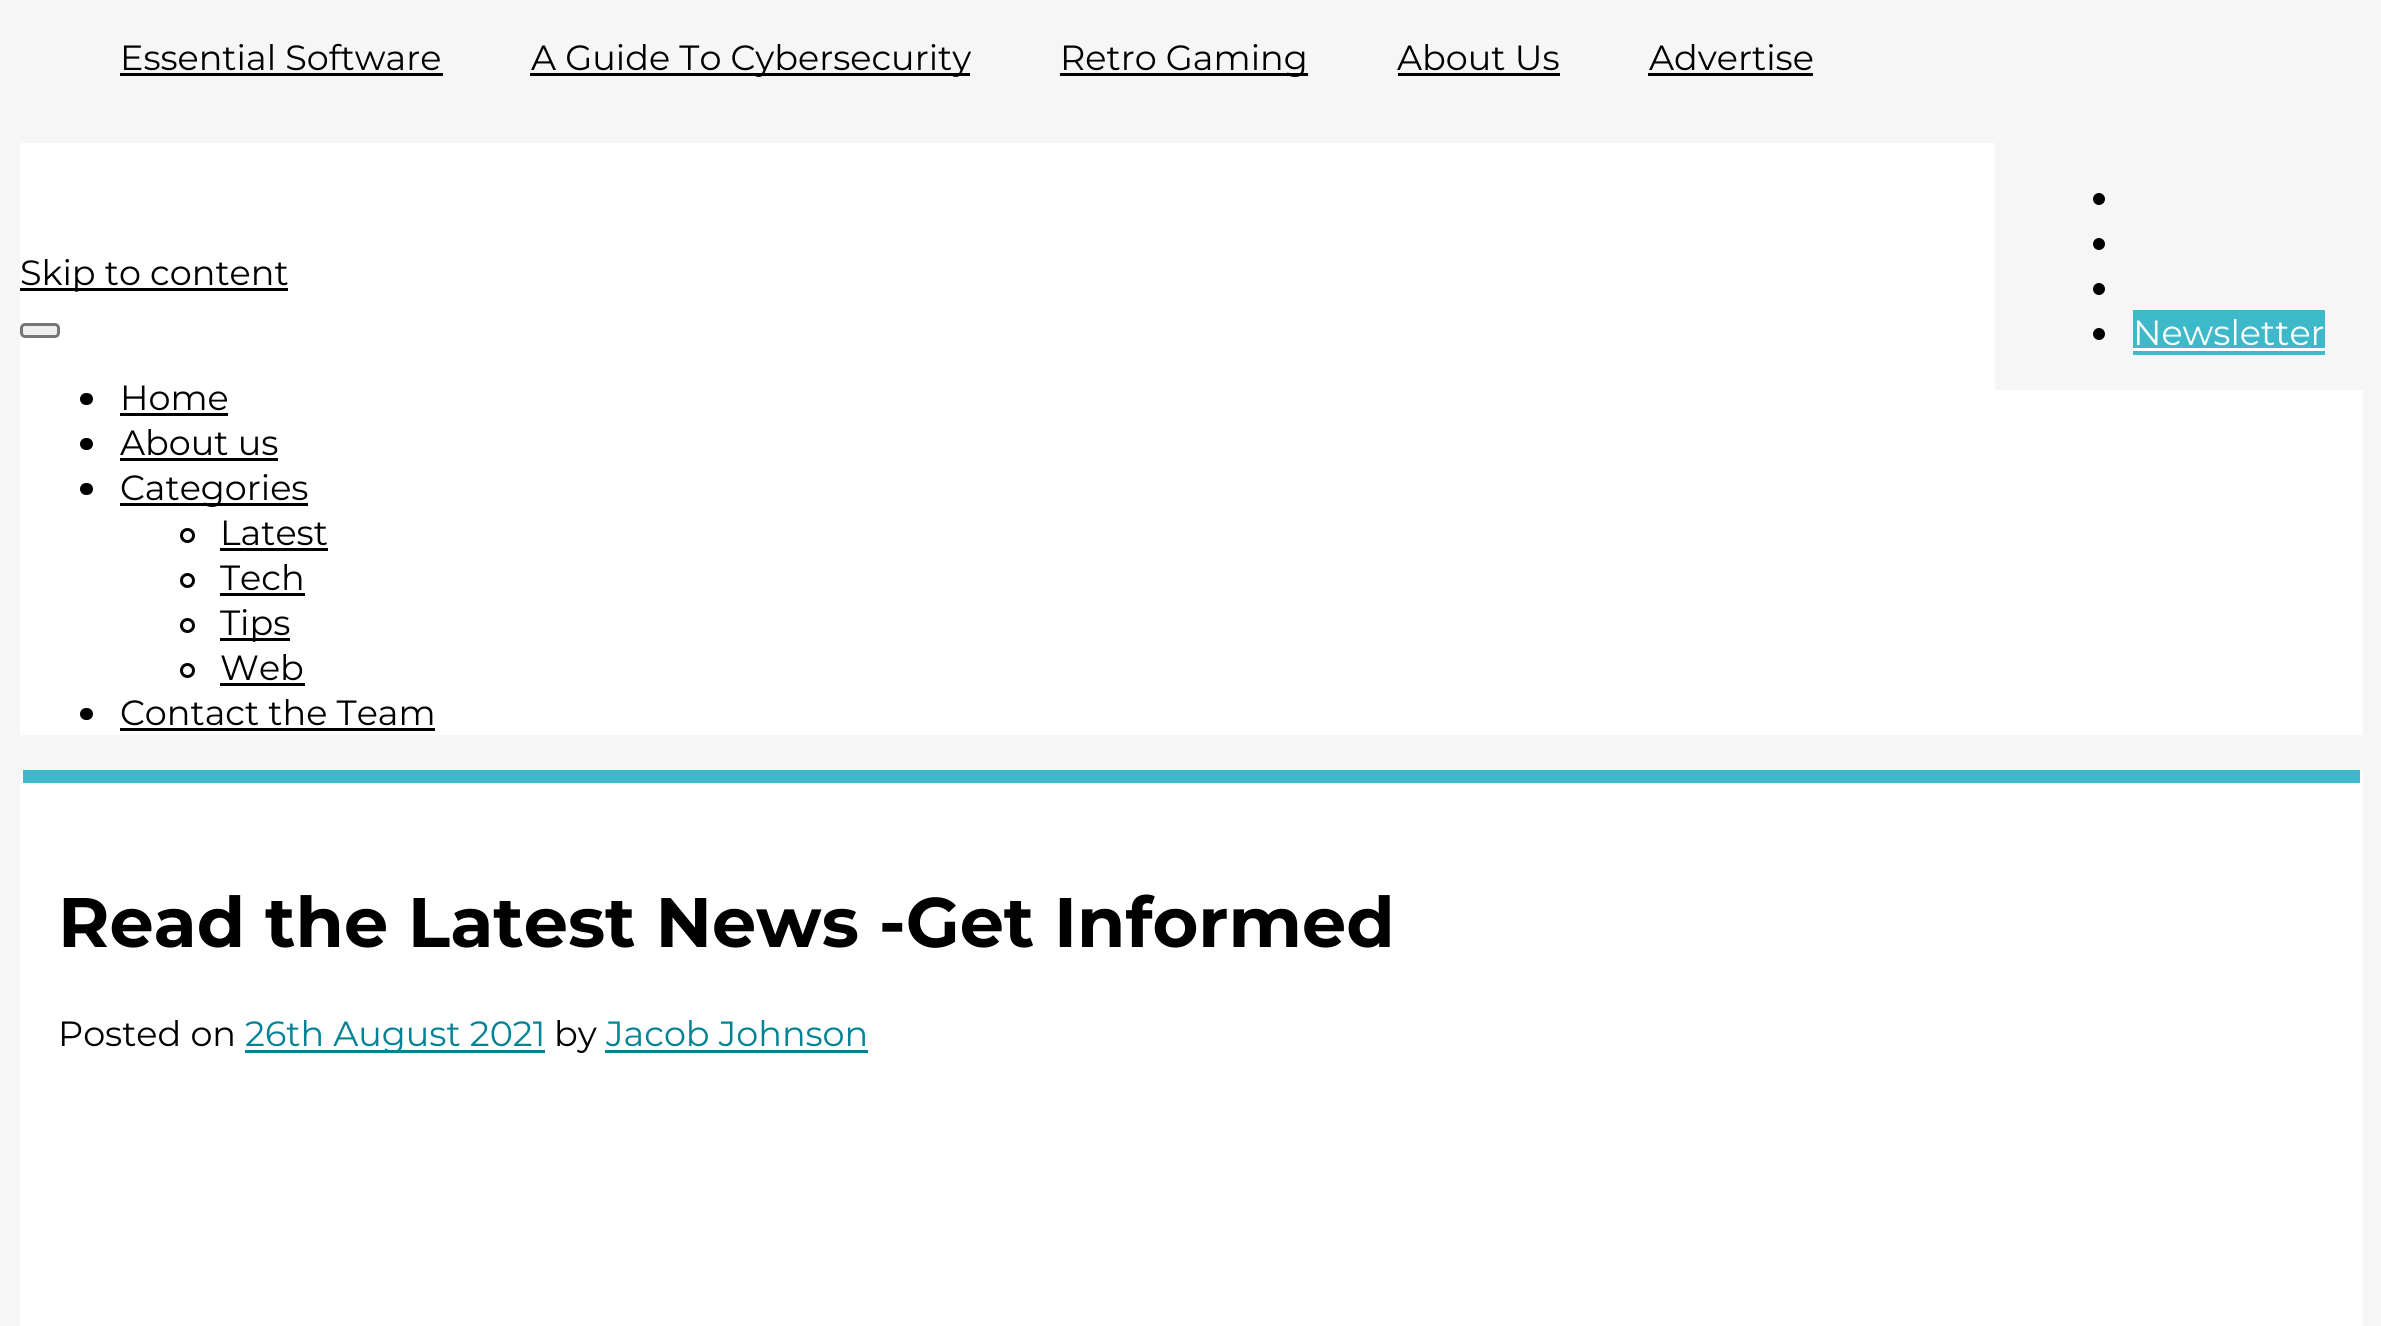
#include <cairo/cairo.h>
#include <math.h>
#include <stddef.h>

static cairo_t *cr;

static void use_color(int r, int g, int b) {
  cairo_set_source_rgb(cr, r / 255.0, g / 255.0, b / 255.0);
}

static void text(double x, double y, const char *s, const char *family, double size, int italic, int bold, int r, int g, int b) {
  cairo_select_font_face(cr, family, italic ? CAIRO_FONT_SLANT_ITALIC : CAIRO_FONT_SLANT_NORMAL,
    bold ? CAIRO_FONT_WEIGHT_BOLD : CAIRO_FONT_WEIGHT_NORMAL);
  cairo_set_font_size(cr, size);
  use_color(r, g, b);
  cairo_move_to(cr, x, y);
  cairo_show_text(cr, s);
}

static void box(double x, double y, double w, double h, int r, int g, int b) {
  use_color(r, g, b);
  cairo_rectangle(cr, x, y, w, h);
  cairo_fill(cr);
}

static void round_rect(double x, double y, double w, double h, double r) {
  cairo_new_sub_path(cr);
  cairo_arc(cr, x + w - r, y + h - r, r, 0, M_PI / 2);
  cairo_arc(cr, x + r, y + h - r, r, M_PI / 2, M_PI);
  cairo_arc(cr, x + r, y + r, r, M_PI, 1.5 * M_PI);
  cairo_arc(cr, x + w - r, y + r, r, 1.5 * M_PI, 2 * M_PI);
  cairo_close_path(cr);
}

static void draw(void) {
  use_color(246, 246, 246);
  cairo_paint(cr);
  box(120, 73, 323, 3, 0, 0, 0);
  box(530, 73, 440, 3, 0, 0, 0);
  box(1060, 73, 248, 3, 0, 0, 0);
  box(1398, 73, 162, 3, 0, 0, 0);
  box(1648, 73, 165, 3, 0, 0, 0);
  box(20, 143, 1975, 107, 255, 255, 255);
  box(20, 250, 2343, 485, 255, 255, 255);
  box(20, 288, 268, 3, 0, 0, 0);
  use_color(239, 239, 239);
  round_rect(21.5, 324.5, 37, 12, 3.5);
  cairo_fill_preserve(cr);
  use_color(118, 118, 118);
  cairo_set_line_width(cr, 3);
  cairo_stroke(cr);
  use_color(0, 0, 0);
  round_rect(80, 393, 13, 12, 6);
  cairo_fill(cr);
  box(120, 413, 108, 3, 0, 0, 0);
  round_rect(80, 438, 13, 12, 6);
  cairo_fill(cr);
  box(120, 458, 158, 3, 0, 0, 0);
  round_rect(80, 483, 13, 12, 6);
  cairo_fill(cr);
  box(120, 503, 188, 3, 0, 0, 0);
  cairo_arc(cr, 187.5, 535.5, 6, 0, 2 * M_PI);
  cairo_stroke(cr);
  box(220, 548, 108, 3, 0, 0, 0);
  cairo_arc(cr, 187.5, 580.5, 6, 0, 2 * M_PI);
  cairo_stroke(cr);
  box(220, 593, 85, 3, 0, 0, 0);
  cairo_arc(cr, 187.5, 625.5, 6, 0, 2 * M_PI);
  cairo_stroke(cr);
  box(220, 638, 70, 3, 0, 0, 0);
  cairo_arc(cr, 187.5, 670.5, 6, 0, 2 * M_PI);
  cairo_stroke(cr);
  box(220, 683, 85, 3, 0, 0, 0);
  round_rect(80, 708, 13, 12, 6);
  cairo_fill(cr);
  box(120, 728, 315, 3, 0, 0, 0);
  box(1995, 250, 368, 140, 246, 246, 246);
  use_color(0, 0, 0);
  cairo_arc(cr, 2099, 199, 6, 0, 2 * M_PI);
  cairo_fill(cr);
  cairo_arc(cr, 2099, 244, 6, 0, 2 * M_PI);
  cairo_fill(cr);
  cairo_arc(cr, 2099, 289, 6, 0, 2 * M_PI);
  cairo_fill(cr);
  cairo_arc(cr, 2099, 334, 6, 0, 2 * M_PI);
  cairo_fill(cr);
  box(2133, 310, 192, 45, 62, 185, 202);
  box(2133, 348, 192, 3, 255, 255, 255);
  round_rect(20, 770, 2343, 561, 5);
  cairo_fill(cr);
  box(23, 770, 2337, 13, 62, 185, 202);
  box(245, 1050, 300, 3, 1, 130, 149);
  box(605, 1050, 263, 3, 1, 130, 149);
  text(120, 70, "Essential Software", "Montserrat", 35, 0, 0, 0, 0, 0);
  text(531, 70, "A Guide To Cybersecurity", "Montserrat", 35, 0, 0, 0, 0, 0);
  text(1060, 70, "Retro Gaming", "Montserrat", 35, 0, 0, 0, 0, 0);
  text(1397, 70, "About Us", "Montserrat", 35, 0, 0, 0, 0, 0);
  text(1649, 70, "Advertise", "Montserrat", 35, 0, 0, 0, 0, 0);
  text(20, 285, "Skip to content", "Montserrat", 35, 0, 0, 0, 0, 0);
  text(120, 410, "Home", "Montserrat", 35, 0, 0, 0, 0, 0);
  text(120, 455, "About us", "Montserrat", 35, 0, 0, 0, 0, 0);
  text(120, 500, "Categories", "Montserrat", 35, 0, 0, 0, 0, 0);
  text(220, 545, "Latest", "Montserrat", 35, 0, 0, 0, 0, 0);
  text(220, 590, "Tech", "Montserrat", 35, 0, 0, 0, 0, 0);
  text(220, 635, "Tips", "Montserrat", 35, 0, 0, 0, 0, 0);
  text(220, 680, "Web", "Montserrat", 35, 0, 0, 0, 0, 0);
  text(120, 725, "Contact the Team", "Montserrat", 35, 0, 0, 0, 0, 0);
  text(2133, 345, "Newsletter", "Montserrat", 35, 0, 0, 255, 255, 255);
  text(58, 947, "Read the Latest News -Get Informed", "Montserrat", 70, 0, 1, 0, 0, 0);
  text(58, 1046, "Posted on", "Montserrat", 35, 0, 0, 0, 0, 0);
  text(245, 1046, "26th August 2021", "Montserrat", 35, 0, 0, 1, 130, 149);
  text(554, 1046, "by", "Montserrat", 35, 0, 0, 0, 0, 0);
  text(606, 1046, "Jacob Johnson", "Montserrat", 35, 0, 0, 1, 130, 149);
}

int main(void) {
  cairo_surface_t *surface = cairo_image_surface_create(CAIRO_FORMAT_RGB24, 2381, 1326);
  cr = cairo_create(surface);
  cairo_font_options_t *options = cairo_font_options_create();
  cairo_font_options_set_hint_metrics(options, CAIRO_HINT_METRICS_OFF);
  cairo_font_options_set_hint_style(options, CAIRO_HINT_STYLE_NONE);
  cairo_set_font_options(cr, options);
  cairo_set_miter_limit(cr, 4);
  draw();
  cairo_surface_write_to_png(surface, "out.png");
  cairo_font_options_destroy(options);
  cairo_destroy(cr);
  cairo_surface_destroy(surface);
  return 0;
}
